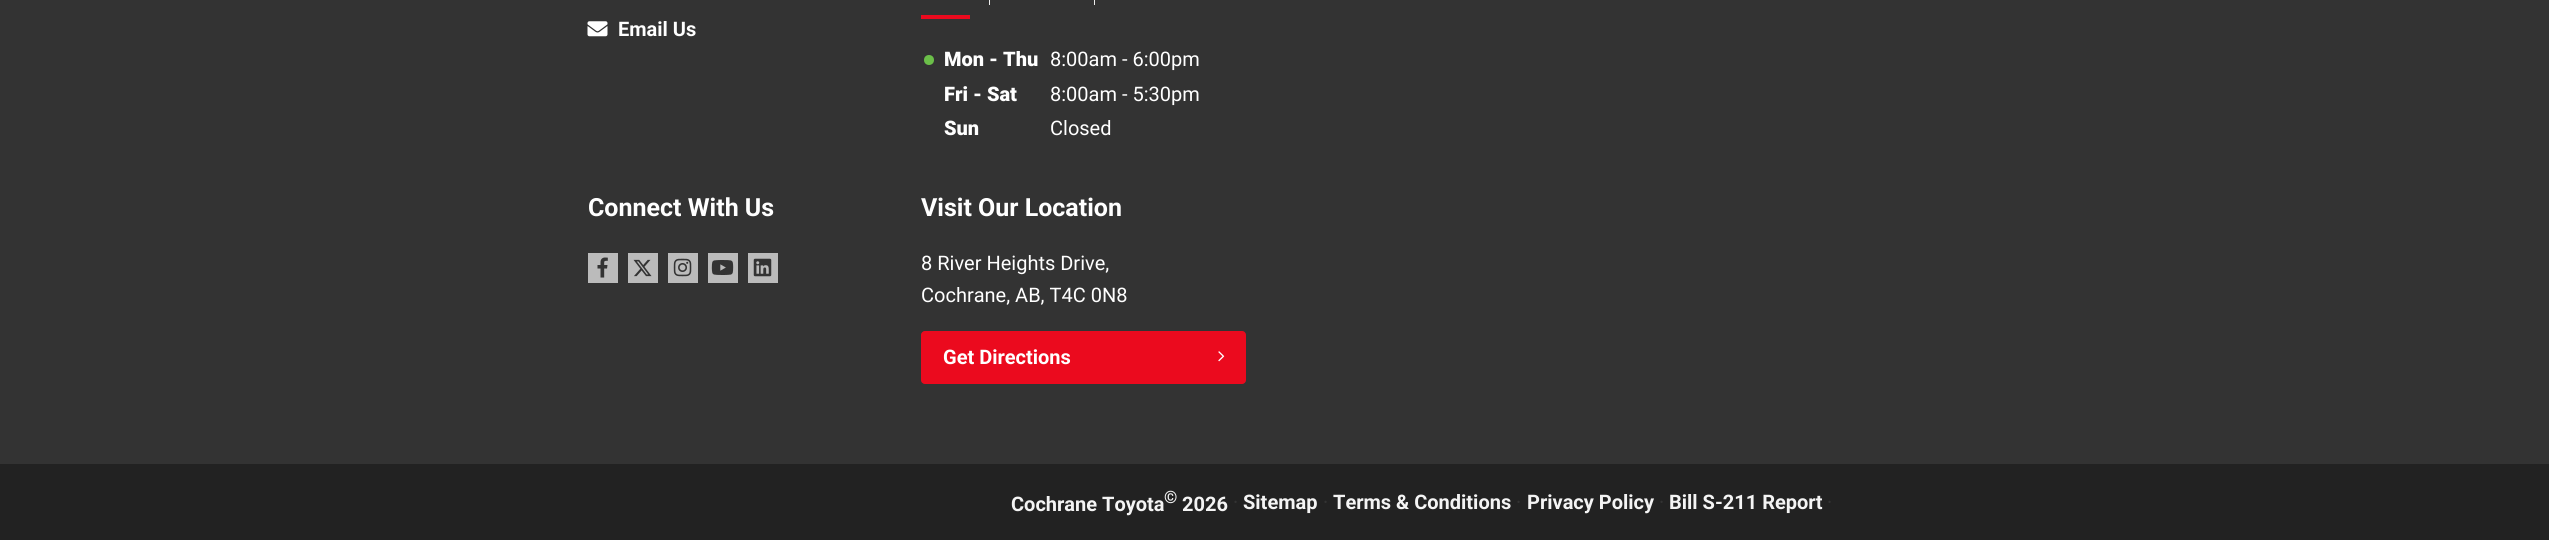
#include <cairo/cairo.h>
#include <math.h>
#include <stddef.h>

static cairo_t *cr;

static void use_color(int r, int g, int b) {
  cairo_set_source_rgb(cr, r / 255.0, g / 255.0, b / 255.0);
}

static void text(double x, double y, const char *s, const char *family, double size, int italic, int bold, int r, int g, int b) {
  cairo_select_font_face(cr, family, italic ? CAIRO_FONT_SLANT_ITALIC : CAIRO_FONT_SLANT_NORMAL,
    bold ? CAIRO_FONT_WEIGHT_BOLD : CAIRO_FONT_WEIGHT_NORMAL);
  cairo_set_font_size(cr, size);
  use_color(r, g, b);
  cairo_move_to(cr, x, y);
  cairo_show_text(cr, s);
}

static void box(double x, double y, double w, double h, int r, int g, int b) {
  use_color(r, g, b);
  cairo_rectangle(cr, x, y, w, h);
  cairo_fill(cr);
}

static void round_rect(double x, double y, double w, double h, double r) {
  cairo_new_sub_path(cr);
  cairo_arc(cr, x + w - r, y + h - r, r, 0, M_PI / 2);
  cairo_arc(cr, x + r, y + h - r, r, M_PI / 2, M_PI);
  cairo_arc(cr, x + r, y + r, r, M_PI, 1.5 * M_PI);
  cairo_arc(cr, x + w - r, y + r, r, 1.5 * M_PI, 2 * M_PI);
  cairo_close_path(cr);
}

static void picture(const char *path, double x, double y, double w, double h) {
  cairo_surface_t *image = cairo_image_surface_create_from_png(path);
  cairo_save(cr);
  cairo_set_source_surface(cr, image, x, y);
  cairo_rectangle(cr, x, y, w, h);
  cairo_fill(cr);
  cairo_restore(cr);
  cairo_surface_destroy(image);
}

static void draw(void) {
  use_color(34, 34, 34);
  cairo_paint(cr);
  box(0, 0, 2549, 464, 51, 51, 51);
  picture("img_01.png", 587, 21, 21, 16);
  box(989, 0, 1, 5, 236, 236, 236);
  box(921, 15, 49, 4, 235, 10, 30);
  box(1094, 0, 1, 5, 236, 236, 236);
  use_color(107, 191, 73);
  cairo_arc(cr, 929, 60, 5, 0, 2 * M_PI);
  cairo_fill(cr);
  box(588, 253, 30, 30, 187, 187, 187);
  picture("img_02.png", 597, 257, 11, 21);
  box(628, 253, 30, 30, 187, 187, 187);
  picture("img_03.png", 633, 259, 19, 18);
  box(668, 253, 30, 30, 187, 187, 187);
  picture("img_04.png", 673, 258, 19, 19);
  box(708, 253, 30, 30, 187, 187, 187);
  picture("img_05.png", 711, 260, 23, 15);
  box(748, 253, 30, 30, 187, 187, 187);
  picture("img_06.png", 753, 258, 19, 19);
  use_color(235, 10, 30);
  round_rect(921, 331, 325, 53, 4);
  cairo_fill(cr);
  picture("img_07.png", 1218, 351, 7, 11);
  text(618, 36, "Email Us", "Roboto", 20, 0, 1, 255, 255, 255);
  text(944, 66, "Mon - Thu", "Roboto Black", 20, 0, 0, 255, 255, 255);
  text(1050, 66, "8:00am - 6:00pm", "Roboto", 20, 0, 0, 255, 255, 255);
  text(944, 101, "Fri - Sat", "Roboto Black", 20, 0, 0, 255, 255, 255);
  text(1050, 101, "8:00am - 5:30pm", "Roboto", 20, 0, 0, 255, 255, 255);
  text(944, 135, "Sun", "Roboto Black", 20, 0, 0, 255, 255, 255);
  text(1050, 135, "Closed", "Roboto", 20, 0, 0, 255, 255, 255);
  text(588, 216, "Connect With Us", "Roboto", 25, 0, 1, 255, 255, 255);
  text(921, 216, "Visit Our Location", "Roboto", 25, 0, 1, 255, 255, 255);
  text(921, 270, "8 River Heights Drive,", "Roboto", 20, 0, 0, 255, 255, 255);
  text(921, 302, "Cochrane, AB, T4C 0N8", "Roboto", 20, 0, 0, 255, 255, 255);
  text(943, 364, "Get Directions", "Roboto", 20, 0, 1, 255, 255, 255);
  text(1011, 511, "Cochrane Toyota", "Roboto", 20, 0, 1, 244, 244, 244);
  text(1164, 503, "©", "Roboto", 17, 0, 1, 244, 244, 244);
  text(1182, 511, "2026", "Roboto", 20, 0, 1, 244, 244, 244);
  text(1233, 509, "·", "Roboto", 20, 0, 0, 51, 51, 51);
  text(1243, 509, "Sitemap", "Roboto", 20, 0, 1, 244, 244, 244);
  text(1323, 509, "·", "Roboto", 20, 0, 0, 51, 51, 51);
  text(1333, 509, "Terms & Conditions", "Roboto", 20, 0, 1, 244, 244, 244);
  text(1516, 509, "·", "Roboto", 20, 0, 0, 51, 51, 51);
  text(1527, 509, "Privacy Policy", "Roboto", 20, 0, 1, 244, 244, 244);
  text(1659, 509, "·", "Roboto", 20, 0, 0, 51, 51, 51);
  text(1669, 509, "Bill S-211 Report", "Roboto", 20, 0, 1, 244, 244, 244);
  text(1827, 509, "·", "Roboto", 20, 0, 0, 51, 51, 51);
}

int main(void) {
  cairo_surface_t *surface = cairo_image_surface_create(CAIRO_FORMAT_RGB24, 2549, 540);
  cr = cairo_create(surface);
  cairo_font_options_t *options = cairo_font_options_create();
  cairo_font_options_set_hint_metrics(options, CAIRO_HINT_METRICS_OFF);
  cairo_font_options_set_hint_style(options, CAIRO_HINT_STYLE_NONE);
  cairo_set_font_options(cr, options);
  cairo_set_miter_limit(cr, 4);
  draw();
  cairo_surface_write_to_png(surface, "out.png");
  cairo_font_options_destroy(options);
  cairo_destroy(cr);
  cairo_surface_destroy(surface);
  return 0;
}
